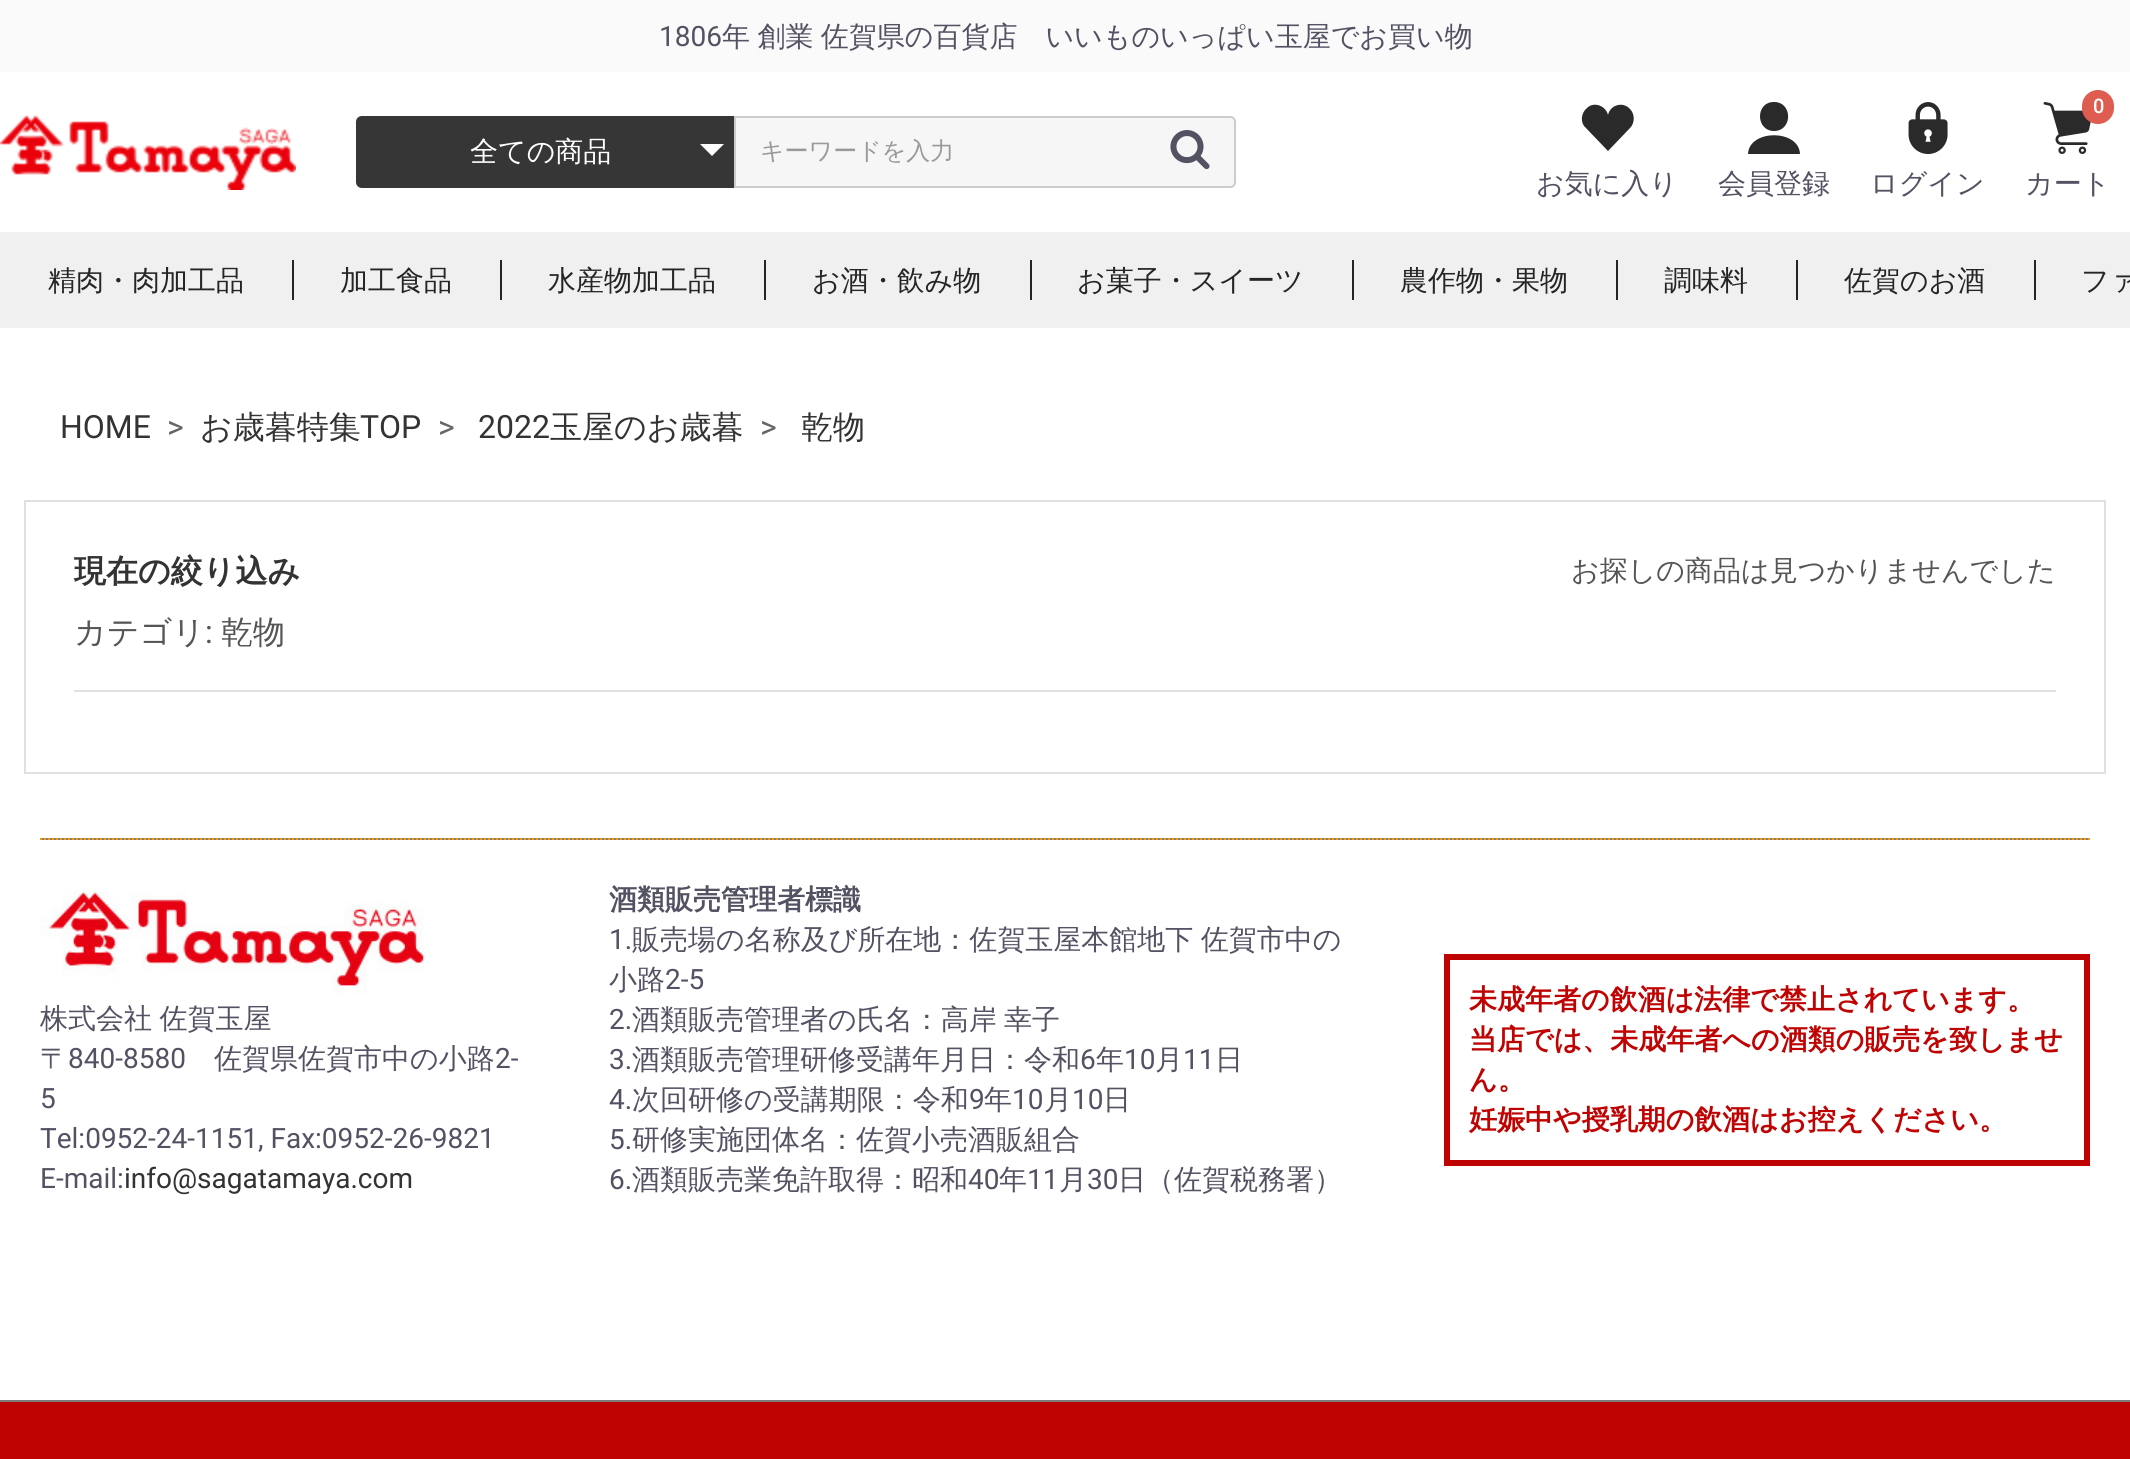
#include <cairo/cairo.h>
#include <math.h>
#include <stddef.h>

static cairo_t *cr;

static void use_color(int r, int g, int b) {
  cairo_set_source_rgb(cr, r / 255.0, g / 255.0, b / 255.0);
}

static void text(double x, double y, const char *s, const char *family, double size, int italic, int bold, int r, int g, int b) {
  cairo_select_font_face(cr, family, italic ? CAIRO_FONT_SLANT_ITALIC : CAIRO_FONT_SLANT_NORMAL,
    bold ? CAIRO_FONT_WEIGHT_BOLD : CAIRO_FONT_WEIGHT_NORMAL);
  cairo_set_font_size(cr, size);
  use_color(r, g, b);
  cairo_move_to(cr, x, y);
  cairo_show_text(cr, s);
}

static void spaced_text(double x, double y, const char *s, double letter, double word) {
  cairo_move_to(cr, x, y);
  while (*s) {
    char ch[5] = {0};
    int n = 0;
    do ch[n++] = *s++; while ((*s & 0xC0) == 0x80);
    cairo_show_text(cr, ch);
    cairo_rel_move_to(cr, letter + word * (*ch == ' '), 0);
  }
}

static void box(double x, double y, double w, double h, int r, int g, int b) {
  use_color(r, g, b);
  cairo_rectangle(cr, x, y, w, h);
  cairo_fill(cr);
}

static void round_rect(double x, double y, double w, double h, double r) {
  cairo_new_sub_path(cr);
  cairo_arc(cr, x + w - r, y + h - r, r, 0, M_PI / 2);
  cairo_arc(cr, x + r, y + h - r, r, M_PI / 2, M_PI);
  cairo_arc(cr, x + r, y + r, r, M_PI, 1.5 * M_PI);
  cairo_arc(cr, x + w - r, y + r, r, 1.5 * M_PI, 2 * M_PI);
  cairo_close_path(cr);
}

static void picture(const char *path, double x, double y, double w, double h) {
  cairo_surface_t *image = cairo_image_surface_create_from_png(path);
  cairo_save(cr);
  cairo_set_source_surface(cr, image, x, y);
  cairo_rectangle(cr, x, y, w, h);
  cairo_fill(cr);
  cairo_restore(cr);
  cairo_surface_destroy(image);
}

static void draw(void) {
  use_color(255, 255, 255);
  cairo_paint(cr);
  box(0, 0, 2130, 72, 250, 250, 250);
  picture("img_01.png", 0, 115, 296, 75);
  use_color(54, 54, 54);
  cairo_new_path(cr);
  cairo_move_to(cr, 362, 116);
  cairo_line_to(cr, 734, 116);
  cairo_line_to(cr, 734, 188);
  cairo_line_to(cr, 362, 188);
  cairo_curve_to(cr, 358.5, 188, 356, 185.5, 356, 182);
  cairo_line_to(cr, 356, 122);
  cairo_curve_to(cr, 356, 118.5, 358.5, 116, 362, 116);
  cairo_close_path(cr);
  cairo_fill(cr);
  use_color(255, 255, 255);
  cairo_new_path(cr);
  cairo_move_to(cr, 700, 144);
  cairo_line_to(cr, 724, 144);
  cairo_line_to(cr, 712, 156);
  cairo_close_path(cr);
  cairo_fill(cr);
  use_color(246, 246, 246);
  cairo_new_path(cr);
  cairo_move_to(cr, 735, 117);
  cairo_line_to(cr, 1230, 117);
  cairo_curve_to(cr, 1233, 117, 1235, 119, 1235, 122);
  cairo_line_to(cr, 1235, 182);
  cairo_curve_to(cr, 1235, 185, 1233, 187, 1230, 187);
  cairo_line_to(cr, 735, 187);
  cairo_close_path(cr);
  cairo_fill_preserve(cr);
  use_color(204, 204, 204);
  cairo_stroke(cr);
  picture("img_02.png", 1170, 130, 40, 40);
  use_color(42, 42, 42);
  cairo_set_fill_rule(cr, CAIRO_FILL_RULE_EVEN_ODD);
  cairo_new_path(cr);
  cairo_move_to(cr, 1630, 109);
  cairo_curve_to(cr, 1623, 101, 1610, 105, 1608, 115);
  cairo_curve_to(cr, 1606, 106, 1594, 101, 1587, 108);
  cairo_curve_to(cr, 1582, 112, 1580, 120, 1584, 126);
  cairo_line_to(cr, 1608, 151);
  cairo_line_to(cr, 1630, 128);
  cairo_curve_to(cr, 1635, 123, 1635, 114, 1630, 109);
  cairo_close_path(cr);
  cairo_fill(cr);
  cairo_new_path(cr);
  cairo_move_to(cr, 1748, 154);
  cairo_curve_to(cr, 1749, 129, 1799, 129, 1800, 154);
  cairo_close_path(cr);
  cairo_move_to(cr, 1774, 131);
  cairo_curve_to(cr, 1756, 131, 1755, 103, 1773, 102);
  cairo_curve_to(cr, 1793, 101, 1793, 131, 1774, 131);
  cairo_close_path(cr);
  cairo_fill(cr);
  picture("img_03.png", 1908, 102, 40, 52);
  picture("img_04.png", 2043, 102, 48, 52);
  use_color(222, 93, 80);
  round_rect(2082, 90, 32, 34, 16);
  cairo_fill(cr);
  box(0, 232, 2130, 96, 240, 240, 240);
  box(292, 260, 2, 40, 37, 37, 37);
  box(500, 260, 2, 40, 37, 37, 37);
  box(764, 260, 2, 40, 37, 37, 37);
  box(1030, 260, 2, 40, 37, 37, 37);
  box(1352, 260, 2, 40, 37, 37, 37);
  box(1616, 260, 2, 40, 37, 37, 37);
  box(1796, 260, 2, 40, 37, 37, 37);
  box(2034, 260, 2, 40, 37, 37, 37);
  cairo_rectangle(cr, 25, 501, 2080, 272);
  use_color(224, 224, 224);
  cairo_stroke(cr);
  box(74, 690, 1982, 2, 224, 224, 224);
  box(40, 838, 2050, 2, 128, 128, 128);
  cairo_new_path(cr);
  cairo_move_to(cr, 40, 839);
  cairo_line_to(cr, 2090, 839);
  use_color(255, 153, 0);
  cairo_set_dash(cr, (double[]){2, 2}, 2, 0);
  cairo_stroke(cr);
  picture("img_05.png", 40, 889, 384, 105);
  cairo_rectangle(cr, 1447, 957, 640, 206);
  use_color(191, 3, 3);
  cairo_set_line_width(cr, 6);
  cairo_set_dash(cr, NULL, 0, 0);
  cairo_stroke(cr);
  box(0, 1402, 2130, 57, 191, 3, 3);
  box(0, 1400, 2130, 2, 125, 125, 125);
  text(659, 46, "1806", "Roboto", 28, 0, 0, 82, 82, 99);
  cairo_select_font_face(cr, "WenQuanYi Zen Hei Medium", CAIRO_FONT_SLANT_NORMAL, CAIRO_FONT_WEIGHT_NORMAL);
  spaced_text(722, 46, "年 創業 佐賀県の百貨店　いいものいっぱい玉屋でお買い物", 0, -1);
  text(470, 161, "全ての商品", "WenQuanYi Zen Hei Medium", 28, 0, 0, 255, 255, 255);
  text(760, 159, "キーワードを入力", "WenQuanYi Zen Hei Medium", 24, 0, 0, 153, 153, 153);
  text(1536, 193, "お気に入り", "WenQuanYi Zen Hei Medium", 28, 0, 0, 82, 82, 99);
  text(1718, 193, "会員登録", "WenQuanYi Zen Hei Medium", 28, 0, 0, 82, 82, 99);
  text(1870, 193, "ログイン", "WenQuanYi Zen Hei Medium", 28, 0, 0, 82, 82, 99);
  text(2093, 113, "0", "Roboto Medium", 20, 0, 0, 255, 255, 255);
  text(2025, 193, "カート", "WenQuanYi Zen Hei Medium", 28, 0, 0, 82, 82, 99);
  text(48, 290, "精肉・肉加工品", "WenQuanYi Zen Hei Medium", 28, 0, 0, 37, 37, 37);
  text(340, 290, "加工食品", "WenQuanYi Zen Hei Medium", 28, 0, 0, 37, 37, 37);
  text(548, 290, "水産物加工品", "WenQuanYi Zen Hei Medium", 28, 0, 0, 37, 37, 37);
  text(812, 290, "お酒・飲み物", "WenQuanYi Zen Hei Medium", 28, 0, 0, 37, 37, 37);
  text(1077, 290, "お菓子・スイーツ", "WenQuanYi Zen Hei Medium", 28, 0, 0, 37, 37, 37);
  text(1400, 290, "農作物・果物", "WenQuanYi Zen Hei Medium", 28, 0, 0, 37, 37, 37);
  text(1664, 290, "調味料", "WenQuanYi Zen Hei Medium", 28, 0, 0, 37, 37, 37);
  text(1844, 290, "佐賀のお酒", "WenQuanYi Zen Hei Medium", 28, 0, 0, 37, 37, 37);
  text(2081, 290, "ファ", "WenQuanYi Zen Hei Medium", 28, 0, 0, 37, 37, 37);
  text(60, 438, "HOME", "Roboto", 32, 0, 0, 51, 51, 51);
  text(167, 438, ">", "Roboto", 32, 0, 0, 102, 102, 102);
  text(200, 438, "お歳暮特集", "WenQuanYi Zen Hei Medium", 32, 0, 0, 51, 51, 51);
  text(360, 438, "TOP", "Roboto", 32, 0, 0, 51, 51, 51);
  text(438, 438, ">", "Roboto", 32, 0, 0, 102, 102, 102);
  text(478, 438, "2022", "Roboto", 32, 0, 0, 51, 51, 51);
  text(550, 438, "玉屋のお歳暮", "WenQuanYi Zen Hei Medium", 32, 0, 0, 51, 51, 51);
  text(760, 438, ">", "Roboto", 32, 0, 0, 102, 102, 102);
  text(801, 438, "乾物", "WenQuanYi Zen Hei Medium", 32, 0, 0, 51, 51, 51);
  text(74, 582, "現在の絞り込み", "WenQuanYi Zen Hei", 32, 0, 1, 51, 51, 51);
  text(74, 643, "カテゴリ", "WenQuanYi Zen Hei Medium", 32, 0, 0, 85, 85, 85);
  text(205, 643, ":", "Roboto", 32, 0, 0, 85, 85, 85);
  text(221, 643, "乾物", "WenQuanYi Zen Hei Medium", 32, 0, 0, 85, 85, 85);
  text(1571, 580, "お探しの商品は見つかりませんでした", "WenQuanYi Zen Hei Medium", 28, 0, 0, 85, 85, 85);
  use_color(82, 82, 99);
  spaced_text(40, 1028, "株式会社 佐賀玉屋", 0, -1);
  text(40, 1068, "〒", "WenQuanYi Zen Hei Medium", 28, 0, 0, 82, 82, 99);
  text(68, 1068, "840-8580", "Roboto", 28, 0, 0, 82, 82, 99);
  text(214, 1068, "佐賀県佐賀市中の小路", "WenQuanYi Zen Hei Medium", 28, 0, 0, 82, 82, 99);
  text(495, 1068, "2-", "Roboto", 28, 0, 0, 82, 82, 99);
  text(40, 1108, "5", "Roboto", 28, 0, 0, 82, 82, 99);
  text(40, 1148, "Tel:0952-24-1151, Fax:0952-26-9821", "Roboto", 28, 0, 0, 82, 82, 99);
  text(40, 1188, "E-mail:", "Roboto", 28, 0, 0, 82, 82, 99);
  text(124, 1188, "info@sagatamaya.com", "Roboto", 28, 0, 0, 51, 51, 51);
  text(609, 909, "酒類販売管理者標識", "WenQuanYi Zen Hei", 28, 0, 1, 82, 82, 99);
  text(609, 949, "1.", "Roboto", 28, 0, 0, 82, 82, 99);
  cairo_select_font_face(cr, "WenQuanYi Zen Hei Medium", CAIRO_FONT_SLANT_NORMAL, CAIRO_FONT_WEIGHT_NORMAL);
  spaced_text(632, 949, "販売場の名称及び所在地：佐賀玉屋本館地下 佐賀市中の", 0, -1);
  text(609, 989, "小路", "WenQuanYi Zen Hei Medium", 28, 0, 0, 82, 82, 99);
  text(665, 989, "2-5", "Roboto", 28, 0, 0, 82, 82, 99);
  text(609, 1029, "2.", "Roboto", 28, 0, 0, 82, 82, 99);
  cairo_select_font_face(cr, "WenQuanYi Zen Hei Medium", CAIRO_FONT_SLANT_NORMAL, CAIRO_FONT_WEIGHT_NORMAL);
  spaced_text(632, 1029, "酒類販売管理者の氏名：高岸 幸子", 0, -1);
  text(609, 1069, "3.", "Roboto", 28, 0, 0, 82, 82, 99);
  text(632, 1069, "酒類販売管理研修受講年月日：令和", "WenQuanYi Zen Hei Medium", 28, 0, 0, 82, 82, 99);
  text(1080, 1069, "6", "Roboto", 28, 0, 0, 82, 82, 99);
  text(1096, 1069, "年", "WenQuanYi Zen Hei Medium", 28, 0, 0, 82, 82, 99);
  text(1124, 1069, "10", "Roboto", 28, 0, 0, 82, 82, 99);
  text(1155, 1069, "月", "WenQuanYi Zen Hei Medium", 28, 0, 0, 82, 82, 99);
  text(1183, 1069, "11", "Roboto", 28, 0, 0, 82, 82, 99);
  text(1215, 1069, "日", "WenQuanYi Zen Hei Medium", 28, 0, 0, 82, 82, 99);
  text(609, 1109, "4.", "Roboto", 28, 0, 0, 82, 82, 99);
  text(632, 1109, "次回研修の受講期限：令和", "WenQuanYi Zen Hei Medium", 28, 0, 0, 82, 82, 99);
  text(969, 1109, "9", "Roboto", 28, 0, 0, 82, 82, 99);
  text(984, 1109, "年", "WenQuanYi Zen Hei Medium", 28, 0, 0, 82, 82, 99);
  text(1012, 1109, "10", "Roboto", 28, 0, 0, 82, 82, 99);
  text(1044, 1109, "月", "WenQuanYi Zen Hei Medium", 28, 0, 0, 82, 82, 99);
  text(1072, 1109, "10", "Roboto", 28, 0, 0, 82, 82, 99);
  text(1103, 1109, "日", "WenQuanYi Zen Hei Medium", 28, 0, 0, 82, 82, 99);
  text(609, 1149, "5.", "Roboto", 28, 0, 0, 82, 82, 99);
  text(632, 1149, "研修実施団体名：佐賀小売酒販組合", "WenQuanYi Zen Hei Medium", 28, 0, 0, 82, 82, 99);
  text(609, 1189, "6.", "Roboto", 28, 0, 0, 82, 82, 99);
  text(632, 1189, "酒類販売業免許取得：昭和", "WenQuanYi Zen Hei Medium", 28, 0, 0, 82, 82, 99);
  text(968, 1189, "40", "Roboto", 28, 0, 0, 82, 82, 99);
  text(999, 1189, "年", "WenQuanYi Zen Hei Medium", 28, 0, 0, 82, 82, 99);
  text(1027, 1189, "11", "Roboto", 28, 0, 0, 82, 82, 99);
  text(1059, 1189, "月", "WenQuanYi Zen Hei Medium", 28, 0, 0, 82, 82, 99);
  text(1087, 1189, "30", "Roboto", 28, 0, 0, 82, 82, 99);
  text(1118, 1189, "日（佐賀税務署）", "WenQuanYi Zen Hei Medium", 28, 0, 0, 82, 82, 99);
  text(1469, 1009, "未成年者の飲酒は法律で禁止されています。", "WenQuanYi Zen Hei", 28, 0, 1, 191, 3, 3);
  text(1469, 1049, "当店では、未成年者への酒類の販売を致しませ", "WenQuanYi Zen Hei", 28, 0, 1, 191, 3, 3);
  text(1469, 1089, "ん。", "WenQuanYi Zen Hei", 28, 0, 1, 191, 3, 3);
  text(1469, 1129, "妊娠中や授乳期の飲酒はお控えください。", "WenQuanYi Zen Hei", 28, 0, 1, 191, 3, 3);
}

int main(void) {
  cairo_surface_t *surface = cairo_image_surface_create(CAIRO_FORMAT_RGB24, 2130, 1459);
  cr = cairo_create(surface);
  cairo_font_options_t *options = cairo_font_options_create();
  cairo_font_options_set_hint_metrics(options, CAIRO_HINT_METRICS_OFF);
  cairo_font_options_set_hint_style(options, CAIRO_HINT_STYLE_NONE);
  cairo_set_font_options(cr, options);
  cairo_set_miter_limit(cr, 4);
  draw();
  cairo_surface_write_to_png(surface, "out.png");
  cairo_font_options_destroy(options);
  cairo_destroy(cr);
  cairo_surface_destroy(surface);
  return 0;
}
